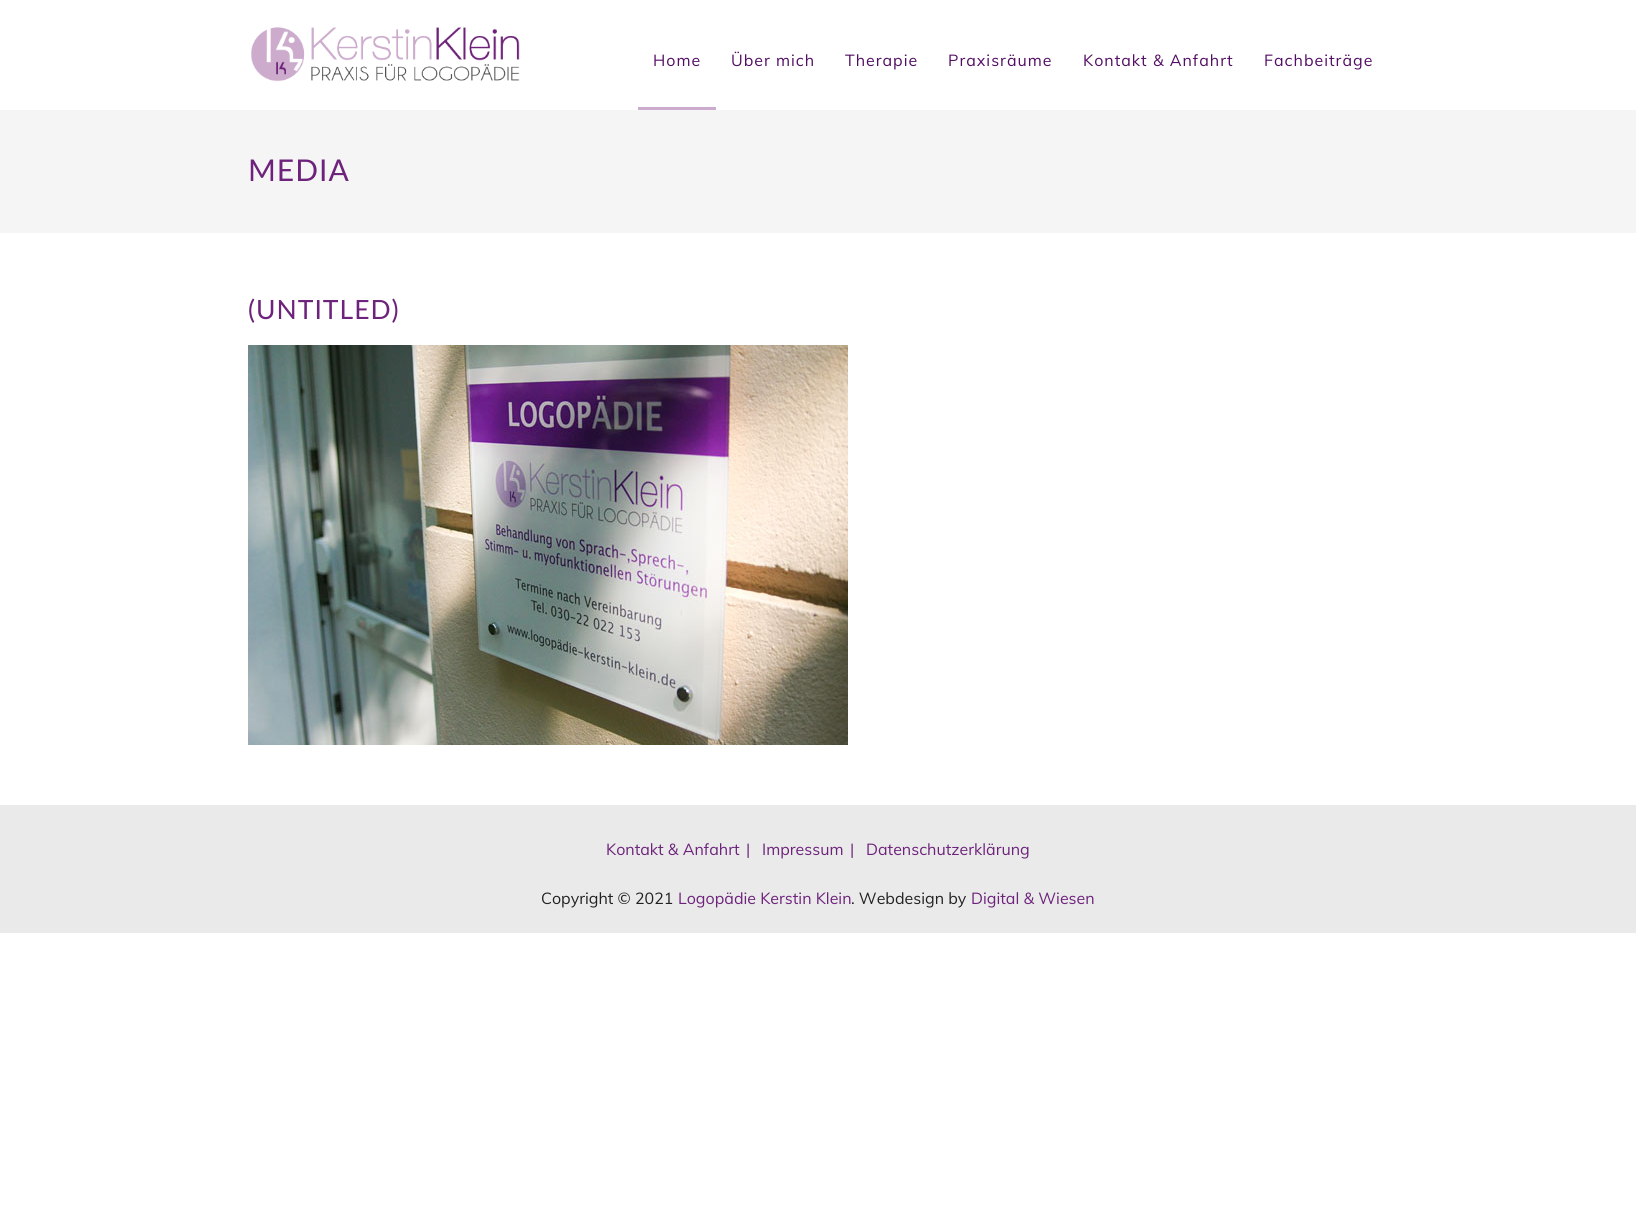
#include <cairo/cairo.h>
#include <math.h>
#include <stddef.h>

static cairo_t *cr;

static void use_color(int r, int g, int b) {
  cairo_set_source_rgb(cr, r / 255.0, g / 255.0, b / 255.0);
}

static void text(double x, double y, const char *s, const char *family, double size, int italic, int bold, int r, int g, int b) {
  cairo_select_font_face(cr, family, italic ? CAIRO_FONT_SLANT_ITALIC : CAIRO_FONT_SLANT_NORMAL,
    bold ? CAIRO_FONT_WEIGHT_BOLD : CAIRO_FONT_WEIGHT_NORMAL);
  cairo_set_font_size(cr, size);
  use_color(r, g, b);
  cairo_move_to(cr, x, y);
  cairo_show_text(cr, s);
}

static void spaced_text(double x, double y, const char *s, double letter, double word) {
  cairo_move_to(cr, x, y);
  while (*s) {
    char ch[5] = {0};
    int n = 0;
    do ch[n++] = *s++; while ((*s & 0xC0) == 0x80);
    cairo_show_text(cr, ch);
    cairo_rel_move_to(cr, letter + word * (*ch == ' '), 0);
  }
}

static void box(double x, double y, double w, double h, int r, int g, int b) {
  use_color(r, g, b);
  cairo_rectangle(cr, x, y, w, h);
  cairo_fill(cr);
}

static void picture(const char *path, double x, double y, double w, double h) {
  cairo_surface_t *image = cairo_image_surface_create_from_png(path);
  cairo_save(cr);
  cairo_set_source_surface(cr, image, x, y);
  cairo_rectangle(cr, x, y, w, h);
  cairo_fill(cr);
  cairo_restore(cr);
  cairo_surface_destroy(image);
}

static void draw(void) {
  use_color(255, 255, 255);
  cairo_paint(cr);
  picture("img_01.png", 251, 27, 269, 55);
  box(638, 107, 78, 3, 203, 172, 206);
  box(0, 110, 1636, 123, 245, 245, 245);
  picture("img_02.png", 248, 345, 600, 400);
  box(0, 805, 1636, 128, 234, 234, 234);
  cairo_select_font_face(cr, "Muli", CAIRO_FONT_SLANT_NORMAL, CAIRO_FONT_WEIGHT_NORMAL);
  cairo_set_font_size(cr, 16);
  use_color(82, 13, 100);
  spaced_text(653, 66, "Home", 1, 0);
  spaced_text(731, 66, "Über mich", 1, 0);
  spaced_text(845, 66, "Therapie", 1, 0);
  spaced_text(948, 66, "Praxisräume", 1, 0);
  spaced_text(1083, 66, "Kontakt & Anfahrt", 1, 0);
  spaced_text(1264, 66, "Fachbeiträge", 1, 0);
  cairo_select_font_face(cr, "Lato", CAIRO_FONT_SLANT_NORMAL, CAIRO_FONT_WEIGHT_NORMAL);
  cairo_set_font_size(cr, 30);
  use_color(109, 35, 123);
  spaced_text(248, 181, "MEDIA", 1, 0);
  cairo_set_font_size(cr, 26.5);
  spaced_text(248, 319, "(UNTITLED)", 1, 0);
  text(606, 855, "Kontakt & Anfahrt", "Muli", 16, 0, 0, 109, 35, 123);
  text(746, 855, "|", "Muli", 16, 0, 0, 109, 35, 123);
  text(762, 855, "Impressum", "Muli", 16, 0, 0, 109, 35, 123);
  text(850, 855, "|", "Muli", 16, 0, 0, 109, 35, 123);
  text(866, 855, "Datenschutzerklärung", "Muli", 16, 0, 0, 109, 35, 123);
  text(541, 904, "Copyright © 2021", "Muli", 16, 0, 0, 34, 33, 34);
  text(678, 904, "Logopädie Kerstin Klein", "Muli", 16, 0, 0, 109, 35, 123);
  text(851, 904, ". Webdesign by", "Muli", 16, 0, 0, 34, 33, 34);
  text(971, 904, "Digital & Wiesen", "Muli", 16, 0, 0, 109, 35, 123);
}

int main(void) {
  cairo_surface_t *surface = cairo_image_surface_create(CAIRO_FORMAT_RGB24, 1636, 1217);
  cr = cairo_create(surface);
  cairo_font_options_t *options = cairo_font_options_create();
  cairo_font_options_set_hint_metrics(options, CAIRO_HINT_METRICS_OFF);
  cairo_font_options_set_hint_style(options, CAIRO_HINT_STYLE_NONE);
  cairo_set_font_options(cr, options);
  cairo_set_miter_limit(cr, 4);
  draw();
  cairo_surface_write_to_png(surface, "out.png");
  cairo_font_options_destroy(options);
  cairo_destroy(cr);
  cairo_surface_destroy(surface);
  return 0;
}
